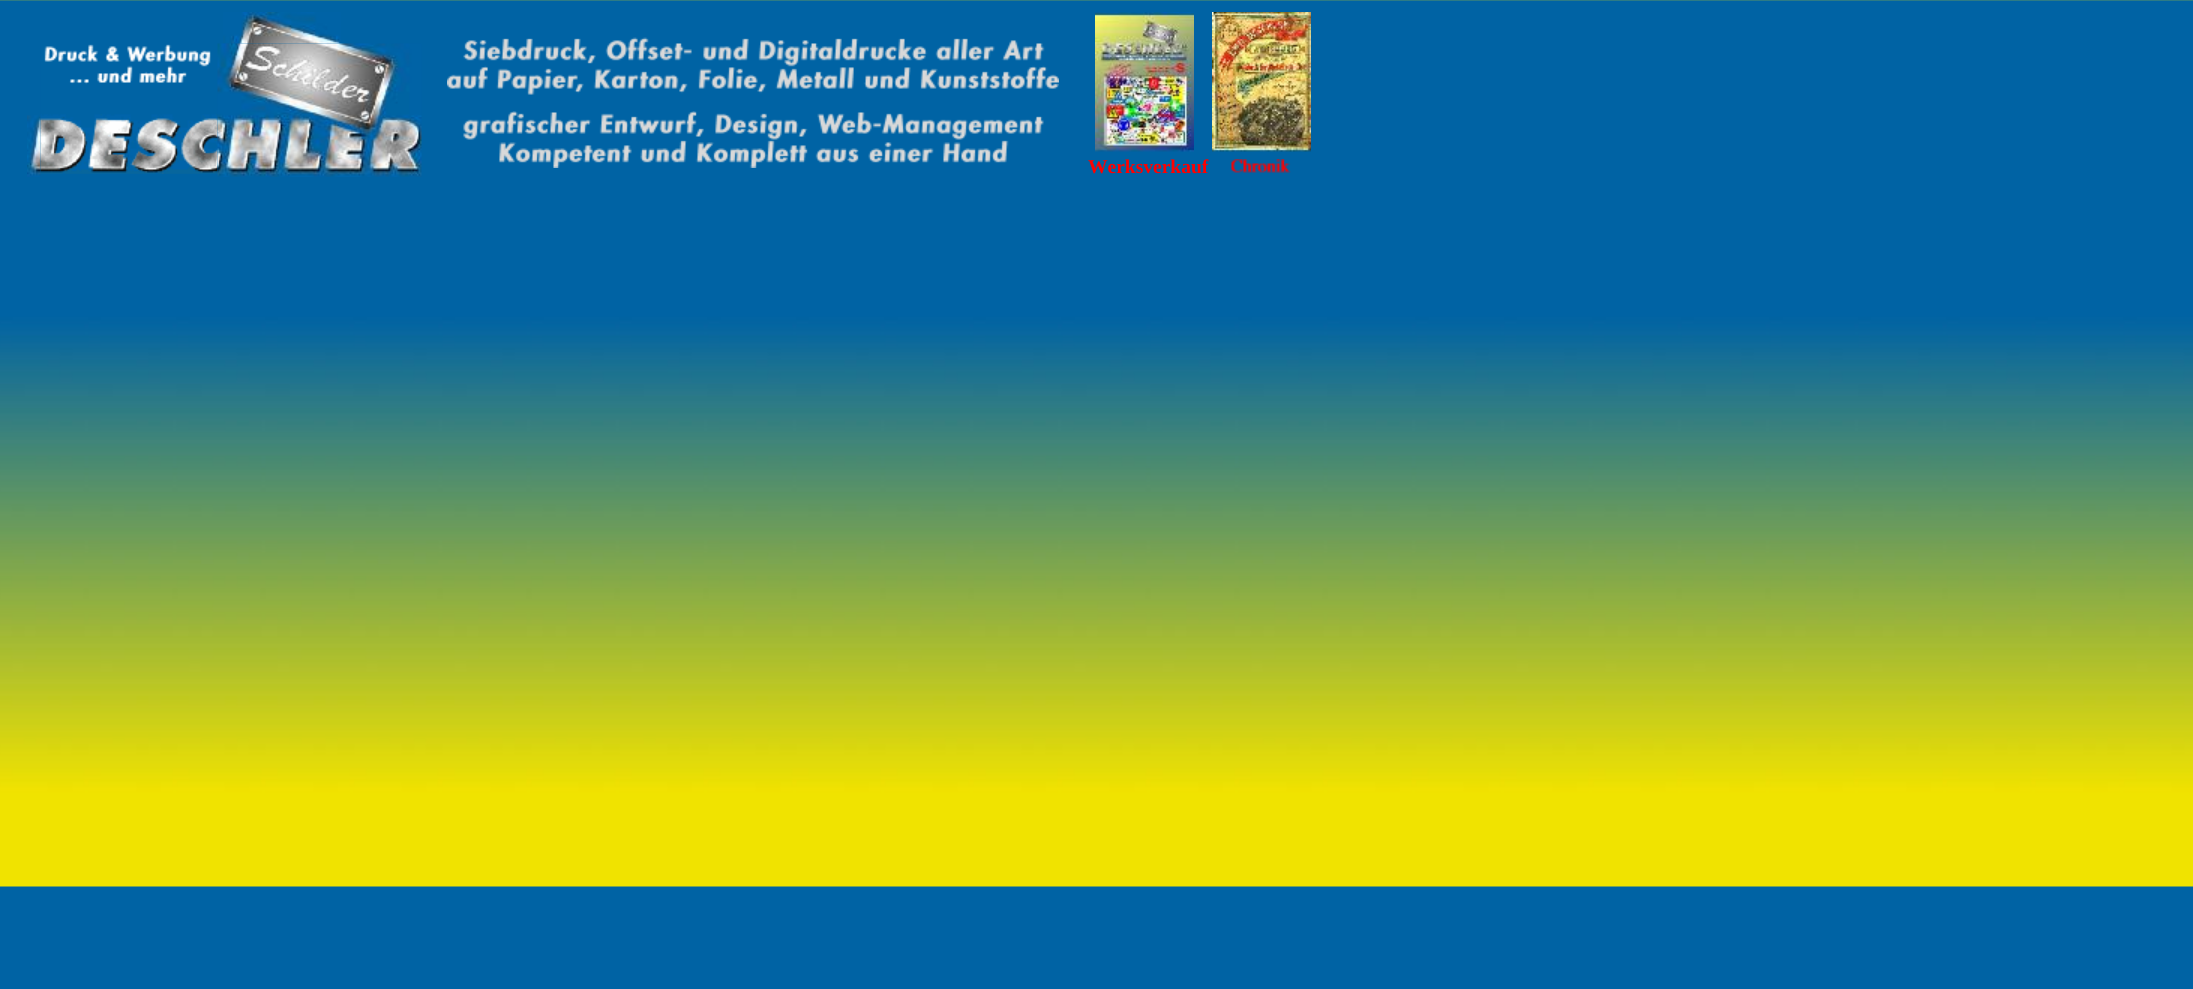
#include <cairo/cairo.h>
#include <math.h>
#include <stddef.h>

static cairo_t *cr;

static void use_color(int r, int g, int b) {
  cairo_set_source_rgb(cr, r / 255.0, g / 255.0, b / 255.0);
}

static void text(double x, double y, const char *s, const char *family, double size, int italic, int bold, int r, int g, int b) {
  cairo_select_font_face(cr, family, italic ? CAIRO_FONT_SLANT_ITALIC : CAIRO_FONT_SLANT_NORMAL,
    bold ? CAIRO_FONT_WEIGHT_BOLD : CAIRO_FONT_WEIGHT_NORMAL);
  cairo_set_font_size(cr, size);
  use_color(r, g, b);
  cairo_move_to(cr, x, y);
  cairo_show_text(cr, s);
}

static void picture(const char *path, double x, double y, double w, double h) {
  cairo_surface_t *image = cairo_image_surface_create_from_png(path);
  cairo_save(cr);
  cairo_set_source_surface(cr, image, x, y);
  cairo_rectangle(cr, x, y, w, h);
  cairo_fill(cr);
  cairo_restore(cr);
  cairo_surface_destroy(image);
}

static void draw(void) {
  use_color(255, 255, 255);
  cairo_paint(cr);
  picture("img_01.png", 0, 0, 2193, 989);
  picture("img_02.png", 1212, 12, 99, 140);
  picture("img_03.png", 223, 12, 118, 32);
  picture("img_04.png", 1095, 12, 99, 140);
  picture("img_05.png", 27, 115, 14, 62);
  picture("img_06.png", 40, 44, 178, 130);
  picture("img_07.png", 217, 43, 205, 134);
  picture("img_08.png", 447, 37, 612, 58);
  picture("img_09.png", 463, 111, 581, 57);
  picture("img_10.png", 1231, 159, 60, 14);
  text(1088, 173, "Werksverkauf", "Liberation Serif", 19.5, 0, 1, 255, 0, 0);
}

int main(void) {
  cairo_surface_t *surface = cairo_image_surface_create(CAIRO_FORMAT_RGB24, 2193, 989);
  cr = cairo_create(surface);
  cairo_font_options_t *options = cairo_font_options_create();
  cairo_font_options_set_hint_metrics(options, CAIRO_HINT_METRICS_OFF);
  cairo_font_options_set_hint_style(options, CAIRO_HINT_STYLE_NONE);
  cairo_set_font_options(cr, options);
  cairo_set_miter_limit(cr, 4);
  draw();
  cairo_surface_write_to_png(surface, "out.png");
  cairo_font_options_destroy(options);
  cairo_destroy(cr);
  cairo_surface_destroy(surface);
  return 0;
}
